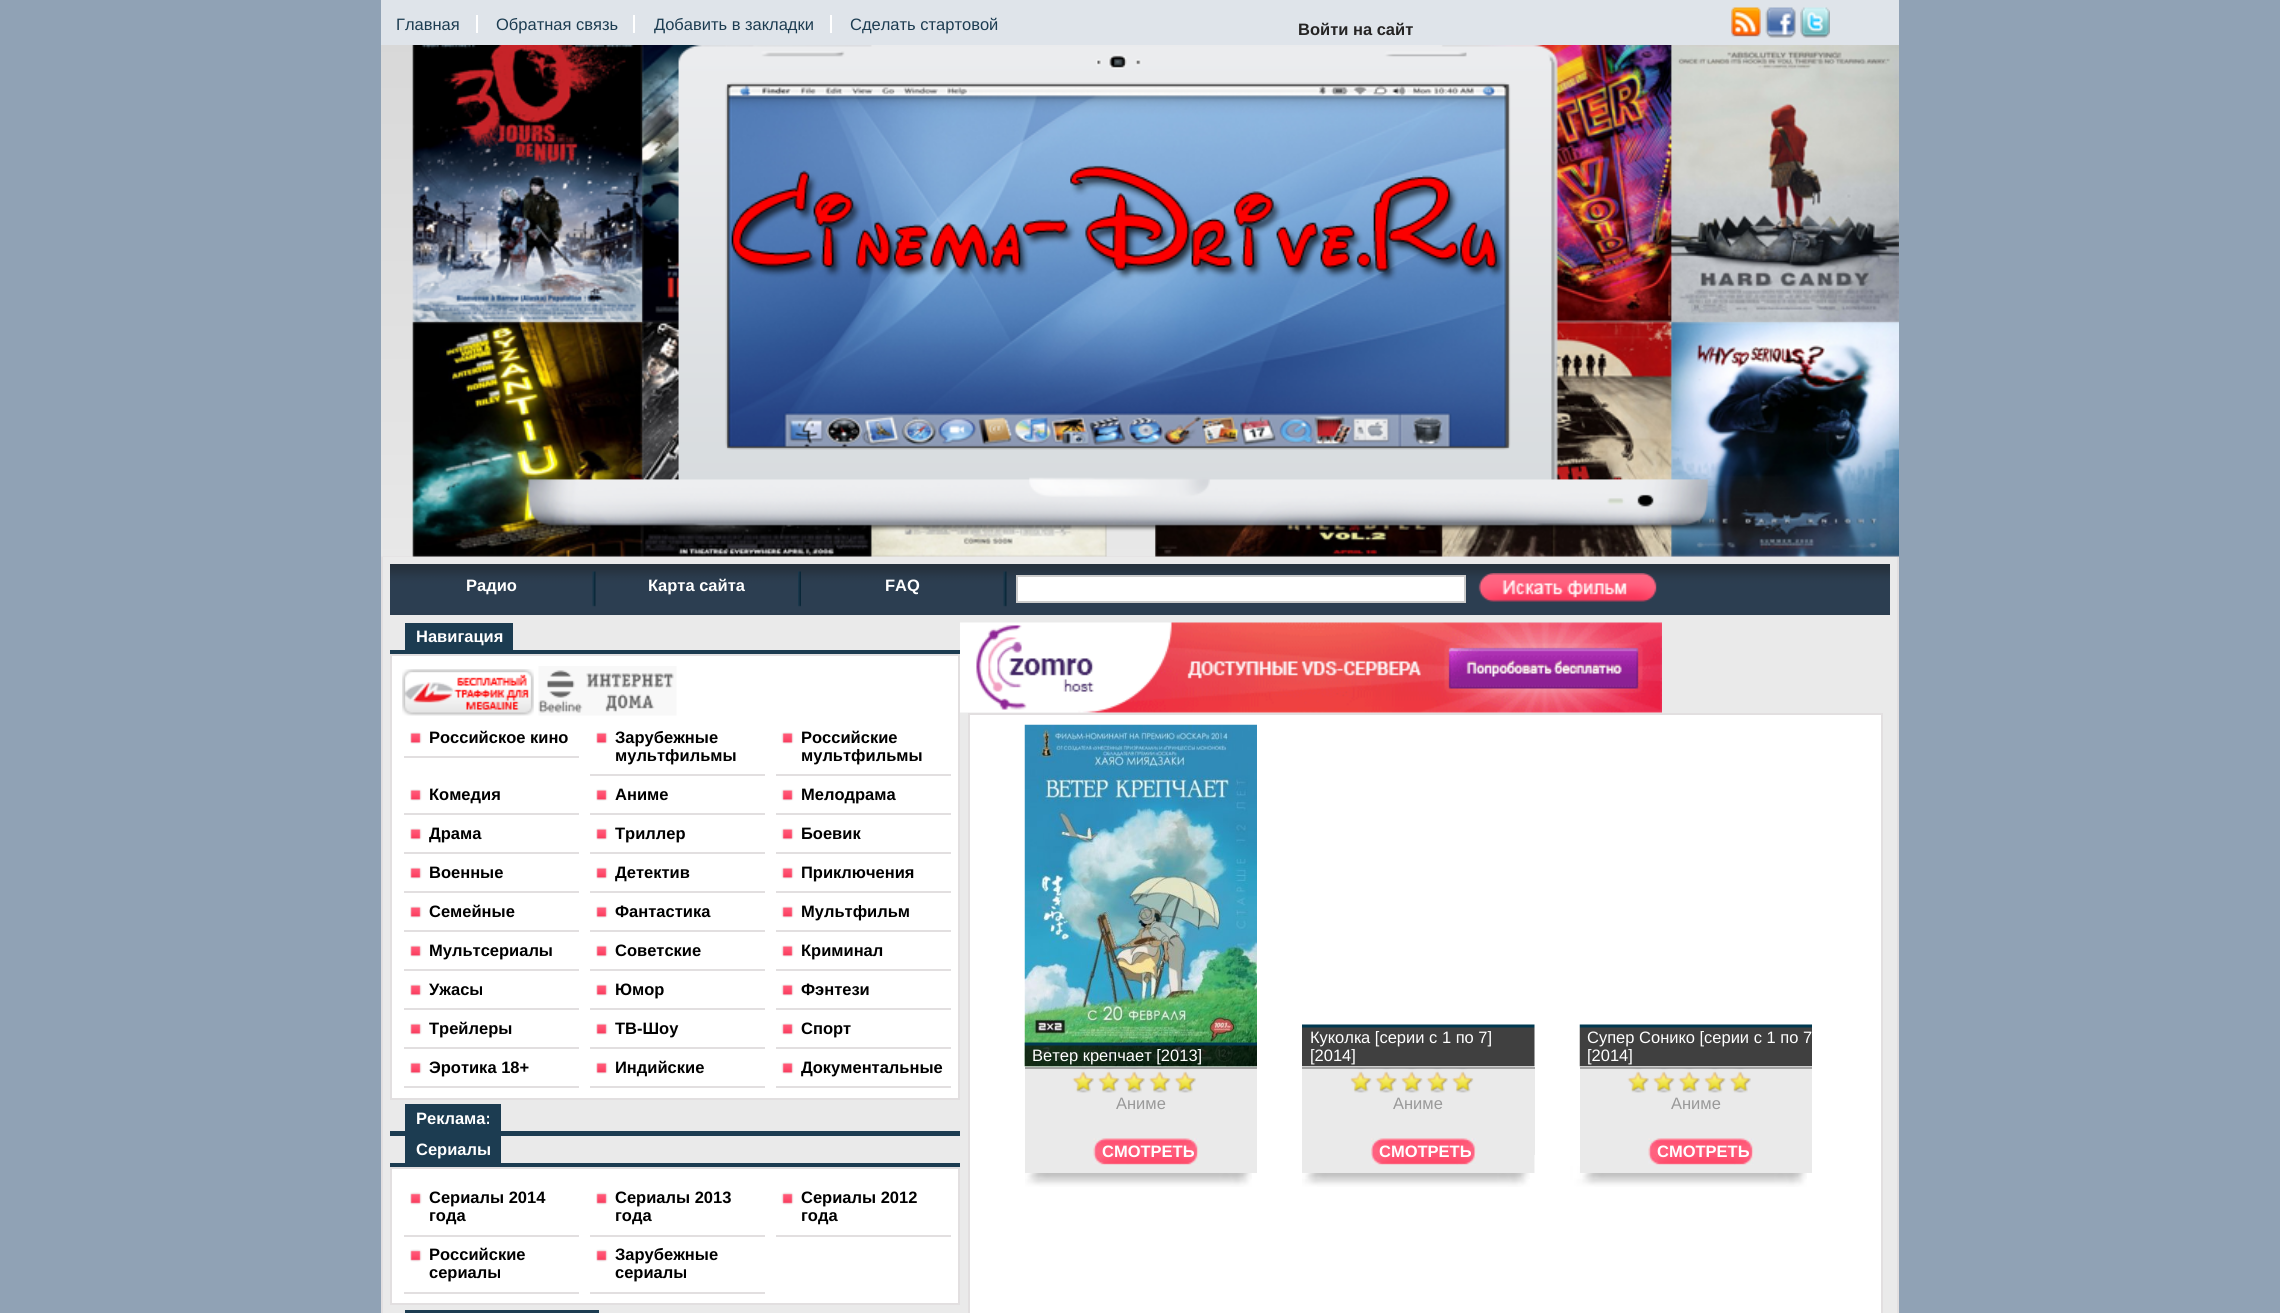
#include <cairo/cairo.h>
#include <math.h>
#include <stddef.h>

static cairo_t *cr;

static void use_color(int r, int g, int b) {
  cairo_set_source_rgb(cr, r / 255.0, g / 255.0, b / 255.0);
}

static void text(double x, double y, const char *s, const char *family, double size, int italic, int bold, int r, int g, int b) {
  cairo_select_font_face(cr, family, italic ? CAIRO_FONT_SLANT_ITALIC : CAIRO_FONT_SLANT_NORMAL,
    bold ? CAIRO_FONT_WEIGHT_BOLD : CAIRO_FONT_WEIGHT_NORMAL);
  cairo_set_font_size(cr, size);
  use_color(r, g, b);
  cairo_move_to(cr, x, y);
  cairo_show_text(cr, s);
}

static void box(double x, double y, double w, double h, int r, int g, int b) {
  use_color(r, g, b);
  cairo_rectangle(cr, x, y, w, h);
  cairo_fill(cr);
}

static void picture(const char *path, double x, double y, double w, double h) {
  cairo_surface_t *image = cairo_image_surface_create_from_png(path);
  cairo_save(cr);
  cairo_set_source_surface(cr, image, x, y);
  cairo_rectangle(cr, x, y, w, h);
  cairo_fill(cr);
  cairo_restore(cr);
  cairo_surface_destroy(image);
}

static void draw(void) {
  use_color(144, 162, 181);
  cairo_paint(cr);
  box(381, 0, 1518, 45, 223, 228, 234);
  box(476, 15, 2, 18, 255, 255, 255);
  box(633, 15, 2, 18, 255, 255, 255);
  box(830, 15, 2, 18, 255, 255, 255);
  picture("img_01.png", 1731, 7, 30, 30);
  picture("img_02.png", 1765, 7, 31, 31);
  picture("img_03.png", 1800, 7, 30, 31);
  use_color(234, 234, 234);
  cairo_rectangle(cr, 382, 556, 1516, 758);
  cairo_fill_preserve(cr);
  use_color(226, 223, 224);
  cairo_stroke(cr);
  picture("img_04.png", 381, 45, 1518, 512);
  picture("img_05.png", 390, 564, 1500, 51);
  picture("img_06.png", 592, 571, 4, 36);
  picture("img_07.png", 798, 571, 3, 36);
  picture("img_06.png", 1003, 571, 4, 36);
  use_color(255, 255, 255);
  cairo_rectangle(cr, 1017, 576, 448, 26);
  cairo_fill_preserve(cr);
  use_color(204, 204, 204);
  cairo_stroke(cr);
  picture("img_08.png", 1478, 573, 179, 29);
  box(390, 650, 570, 4, 28, 60, 81);
  box(405, 623, 108, 27, 28, 60, 81);
  use_color(255, 255, 255);
  cairo_rectangle(cr, 391, 655, 568, 444);
  cairo_fill_preserve(cr);
  use_color(226, 223, 224);
  cairo_stroke(cr);
  picture("img_09.png", 402, 669, 132, 47);
  picture("img_10.png", 538, 666, 139, 50);
  picture("img_11.png", 410, 732, 12, 12);
  box(404, 756, 175, 2, 226, 223, 224);
  picture("img_11.png", 596, 732, 12, 12);
  box(590, 774, 175, 2, 226, 223, 224);
  picture("img_12.png", 781, 732, 13, 12);
  box(776, 774, 175, 2, 226, 223, 224);
  picture("img_11.png", 410, 789, 12, 12);
  box(404, 813, 175, 2, 226, 223, 224);
  picture("img_11.png", 596, 789, 12, 12);
  box(590, 813, 175, 2, 226, 223, 224);
  picture("img_12.png", 781, 789, 13, 12);
  box(776, 813, 175, 2, 226, 223, 224);
  picture("img_11.png", 410, 828, 12, 12);
  box(404, 852, 175, 2, 226, 223, 224);
  picture("img_11.png", 596, 828, 12, 12);
  box(590, 852, 175, 2, 226, 223, 224);
  picture("img_12.png", 781, 828, 13, 12);
  box(776, 852, 175, 2, 226, 223, 224);
  picture("img_11.png", 410, 867, 12, 12);
  box(404, 891, 175, 2, 226, 223, 224);
  picture("img_11.png", 596, 867, 12, 12);
  box(590, 891, 175, 2, 226, 223, 224);
  picture("img_12.png", 781, 867, 13, 12);
  box(776, 891, 175, 2, 226, 223, 224);
  picture("img_11.png", 410, 906, 12, 12);
  box(404, 930, 175, 2, 226, 223, 224);
  picture("img_11.png", 596, 906, 12, 12);
  box(590, 930, 175, 2, 226, 223, 224);
  picture("img_12.png", 781, 906, 13, 12);
  box(776, 930, 175, 2, 226, 223, 224);
  picture("img_11.png", 410, 945, 12, 12);
  box(404, 969, 175, 2, 226, 223, 224);
  picture("img_11.png", 596, 945, 12, 12);
  box(590, 969, 175, 2, 226, 223, 224);
  picture("img_12.png", 781, 945, 13, 12);
  box(776, 969, 175, 2, 226, 223, 224);
  picture("img_11.png", 410, 984, 12, 12);
  box(404, 1008, 175, 2, 226, 223, 224);
  picture("img_11.png", 596, 984, 12, 12);
  box(590, 1008, 175, 2, 226, 223, 224);
  picture("img_12.png", 781, 984, 13, 12);
  box(776, 1008, 175, 2, 226, 223, 224);
  picture("img_11.png", 410, 1023, 12, 12);
  box(404, 1047, 175, 2, 226, 223, 224);
  picture("img_11.png", 596, 1023, 12, 12);
  box(590, 1047, 175, 2, 226, 223, 224);
  picture("img_12.png", 781, 1023, 13, 12);
  box(776, 1047, 175, 2, 226, 223, 224);
  picture("img_11.png", 410, 1062, 12, 12);
  box(404, 1086, 175, 2, 226, 223, 224);
  picture("img_11.png", 596, 1062, 12, 12);
  box(590, 1086, 175, 2, 226, 223, 224);
  picture("img_12.png", 781, 1062, 13, 12);
  box(776, 1086, 175, 2, 226, 223, 224);
  box(390, 1131, 570, 5, 28, 60, 81);
  box(405, 1104, 96, 27, 28, 60, 81);
  box(390, 1163, 570, 4, 28, 60, 81);
  box(405, 1136, 96, 27, 28, 60, 81);
  use_color(255, 255, 255);
  cairo_rectangle(cr, 391, 1168, 568, 136);
  cairo_fill_preserve(cr);
  use_color(226, 223, 224);
  cairo_stroke(cr);
  picture("img_13.png", 410, 1192, 12, 13);
  box(404, 1235, 175, 2, 226, 223, 224);
  picture("img_13.png", 596, 1192, 12, 13);
  box(590, 1235, 175, 2, 226, 223, 224);
  picture("img_14.png", 781, 1192, 13, 13);
  box(776, 1235, 175, 2, 226, 223, 224);
  picture("img_13.png", 410, 1249, 12, 13);
  box(404, 1292, 175, 2, 226, 223, 224);
  picture("img_13.png", 596, 1249, 12, 13);
  box(590, 1292, 175, 2, 226, 223, 224);
  box(405, 1310, 194, 3, 28, 60, 81);
  picture("img_15.png", 960, 622, 702, 91);
  use_color(255, 255, 255);
  cairo_rectangle(cr, 969, 714, 913, 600);
  cairo_fill_preserve(cr);
  use_color(226, 223, 224);
  cairo_stroke(cr);
  picture("img_16.png", 1025, 1173, 227, 14);
  picture("img_17.png", 1024, 724, 233, 343);
  picture("img_18.png", 1024, 1042, 233, 25);
  box(1025, 1069, 232, 104, 234, 234, 234);
  box(1025, 1067, 232, 2, 165, 165, 165);
  picture("img_19.png", 1073, 1072, 123, 19);
  picture("img_20.png", 1072, 1068, 124, 25);
  picture("img_21.png", 1093, 1138, 106, 27);
  picture("img_22.png", 1302, 1173, 228, 14);
  picture("img_23.png", 1302, 1024, 233, 43);
  box(1302, 1069, 233, 104, 234, 234, 234);
  box(1302, 1067, 233, 2, 165, 165, 165);
  picture("img_24.png", 1351, 1072, 122, 19);
  picture("img_25.png", 1350, 1068, 124, 25);
  picture("img_26.png", 1371, 1138, 105, 27);
  picture("img_27.png", 1534, 1155, 273, 32);
  picture("img_28.png", 1579, 1024, 233, 43);
  box(1580, 1069, 232, 104, 234, 234, 234);
  box(1580, 1067, 232, 2, 165, 165, 165);
  picture("img_29.png", 1628, 1072, 123, 19);
  picture("img_30.png", 1627, 1068, 124, 25);
  picture("img_21.png", 1648, 1138, 106, 27);
  text(396, 30, "Главная", "Liberation Sans", 16.5, 0, 0, 28, 60, 81);
  text(496, 30, "Обратная связь", "Liberation Sans", 16.5, 0, 0, 28, 60, 81);
  text(654, 30, "Добавить в закладки", "Liberation Sans", 16.5, 0, 0, 28, 60, 81);
  text(850, 30, "Сделать стартовой", "Liberation Sans", 16.5, 0, 0, 28, 60, 81);
  text(1298, 35, "Войти на сайт", "Liberation Sans", 16.5, 0, 1, 37, 36, 36);
  text(466, 591, "Радио", "Liberation Sans", 16.5, 0, 1, 255, 255, 255);
  text(648, 591, "Карта сайта", "Liberation Sans", 16.5, 0, 1, 255, 255, 255);
  text(885, 591, "FAQ", "Liberation Sans", 16.5, 0, 1, 255, 255, 255);
  text(416, 642, "Навигация", "Liberation Sans", 16.5, 0, 1, 255, 255, 255);
  text(429, 743, "Российское кино", "Liberation Sans", 16.5, 0, 1, 0, 0, 0);
  text(615, 743, "Зарубежные", "Liberation Sans", 16.5, 0, 1, 0, 0, 0);
  text(615, 761, "мультфильмы", "Liberation Sans", 16.5, 0, 1, 0, 0, 0);
  text(801, 743, "Российские", "Liberation Sans", 16.5, 0, 1, 0, 0, 0);
  text(801, 761, "мультфильмы", "Liberation Sans", 16.5, 0, 1, 0, 0, 0);
  text(429, 800, "Комедия", "Liberation Sans", 16.5, 0, 1, 0, 0, 0);
  text(615, 800, "Аниме", "Liberation Sans", 16.5, 0, 1, 0, 0, 0);
  text(801, 800, "Мелодрама", "Liberation Sans", 16.5, 0, 1, 0, 0, 0);
  text(429, 839, "Драма", "Liberation Sans", 16.5, 0, 1, 0, 0, 0);
  text(615, 839, "Триллер", "Liberation Sans", 16.5, 0, 1, 0, 0, 0);
  text(801, 839, "Боевик", "Liberation Sans", 16.5, 0, 1, 0, 0, 0);
  text(429, 878, "Военные", "Liberation Sans", 16.5, 0, 1, 0, 0, 0);
  text(615, 878, "Детектив", "Liberation Sans", 16.5, 0, 1, 0, 0, 0);
  text(801, 878, "Приключения", "Liberation Sans", 16.5, 0, 1, 0, 0, 0);
  text(429, 917, "Семейные", "Liberation Sans", 16.5, 0, 1, 0, 0, 0);
  text(615, 917, "Фантастика", "Liberation Sans", 16.5, 0, 1, 0, 0, 0);
  text(801, 917, "Мультфильм", "Liberation Sans", 16.5, 0, 1, 0, 0, 0);
  text(429, 956, "Мультсериалы", "Liberation Sans", 16.5, 0, 1, 0, 0, 0);
  text(615, 956, "Советские", "Liberation Sans", 16.5, 0, 1, 0, 0, 0);
  text(801, 956, "Криминал", "Liberation Sans", 16.5, 0, 1, 0, 0, 0);
  text(429, 995, "Ужасы", "Liberation Sans", 16.5, 0, 1, 0, 0, 0);
  text(615, 995, "Юмор", "Liberation Sans", 16.5, 0, 1, 0, 0, 0);
  text(801, 995, "Фэнтези", "Liberation Sans", 16.5, 0, 1, 0, 0, 0);
  text(429, 1034, "Трейлеры", "Liberation Sans", 16.5, 0, 1, 0, 0, 0);
  text(615, 1034, "ТВ-Шоу", "Liberation Sans", 16.5, 0, 1, 0, 0, 0);
  text(801, 1034, "Спорт", "Liberation Sans", 16.5, 0, 1, 0, 0, 0);
  text(429, 1073, "Эротика 18+", "Liberation Sans", 16.5, 0, 1, 0, 0, 0);
  text(615, 1073, "Индийские", "Liberation Sans", 16.5, 0, 1, 0, 0, 0);
  text(801, 1073, "Документальные", "Liberation Sans", 16.5, 0, 1, 0, 0, 0);
  text(416, 1124, "Реклама:", "Liberation Sans", 16.5, 0, 1, 255, 255, 255);
  text(416, 1155, "Cериалы", "Liberation Sans", 16.5, 0, 1, 255, 255, 255);
  text(429, 1203, "Сериалы 2014", "Liberation Sans", 16.5, 0, 1, 0, 0, 0);
  text(429, 1221, "года", "Liberation Sans", 16.5, 0, 1, 0, 0, 0);
  text(615, 1203, "Сериалы 2013", "Liberation Sans", 16.5, 0, 1, 0, 0, 0);
  text(615, 1221, "года", "Liberation Sans", 16.5, 0, 1, 0, 0, 0);
  text(801, 1203, "Сериалы 2012", "Liberation Sans", 16.5, 0, 1, 0, 0, 0);
  text(801, 1221, "года", "Liberation Sans", 16.5, 0, 1, 0, 0, 0);
  text(429, 1260, "Российские", "Liberation Sans", 16.5, 0, 1, 0, 0, 0);
  text(429, 1278, "сериалы", "Liberation Sans", 16.5, 0, 1, 0, 0, 0);
  text(615, 1260, "Зарубежные", "Liberation Sans", 16.5, 0, 1, 0, 0, 0);
  text(615, 1278, "сериалы", "Liberation Sans", 16.5, 0, 1, 0, 0, 0);
  text(1032, 1061, "Ветер крепчает [2013]", "Liberation Sans", 16.5, 0, 0, 255, 255, 255);
  text(1116, 1109, "Аниме", "Liberation Sans", 16.5, 0, 0, 153, 153, 153);
  text(1102, 1157, "СМОТРЕТЬ", "Liberation Sans", 16.5, 0, 1, 255, 255, 255);
  text(1310, 1043, "Куколка [серии с 1 по 7]", "Liberation Sans", 16.5, 0, 0, 255, 255, 255);
  text(1310, 1061, "[2014]", "Liberation Sans", 16.5, 0, 0, 255, 255, 255);
  text(1393, 1109, "Аниме", "Liberation Sans", 16.5, 0, 0, 153, 153, 153);
  text(1379, 1157, "СМОТРЕТЬ", "Liberation Sans", 16.5, 0, 1, 255, 255, 255);
  text(1587, 1043, "Супер Сонико [серии с 1 по 7", "Liberation Sans", 16.5, 0, 0, 255, 255, 255);
  text(1587, 1061, "[2014]", "Liberation Sans", 16.5, 0, 0, 255, 255, 255);
  text(1671, 1109, "Аниме", "Liberation Sans", 16.5, 0, 0, 153, 153, 153);
  text(1657, 1157, "СМОТРЕТЬ", "Liberation Sans", 16.5, 0, 1, 255, 255, 255);
}

int main(void) {
  cairo_surface_t *surface = cairo_image_surface_create(CAIRO_FORMAT_RGB24, 2280, 1313);
  cr = cairo_create(surface);
  cairo_font_options_t *options = cairo_font_options_create();
  cairo_font_options_set_hint_metrics(options, CAIRO_HINT_METRICS_OFF);
  cairo_font_options_set_hint_style(options, CAIRO_HINT_STYLE_NONE);
  cairo_set_font_options(cr, options);
  cairo_set_miter_limit(cr, 4);
  draw();
  cairo_surface_write_to_png(surface, "out.png");
  cairo_font_options_destroy(options);
  cairo_destroy(cr);
  cairo_surface_destroy(surface);
  return 0;
}
